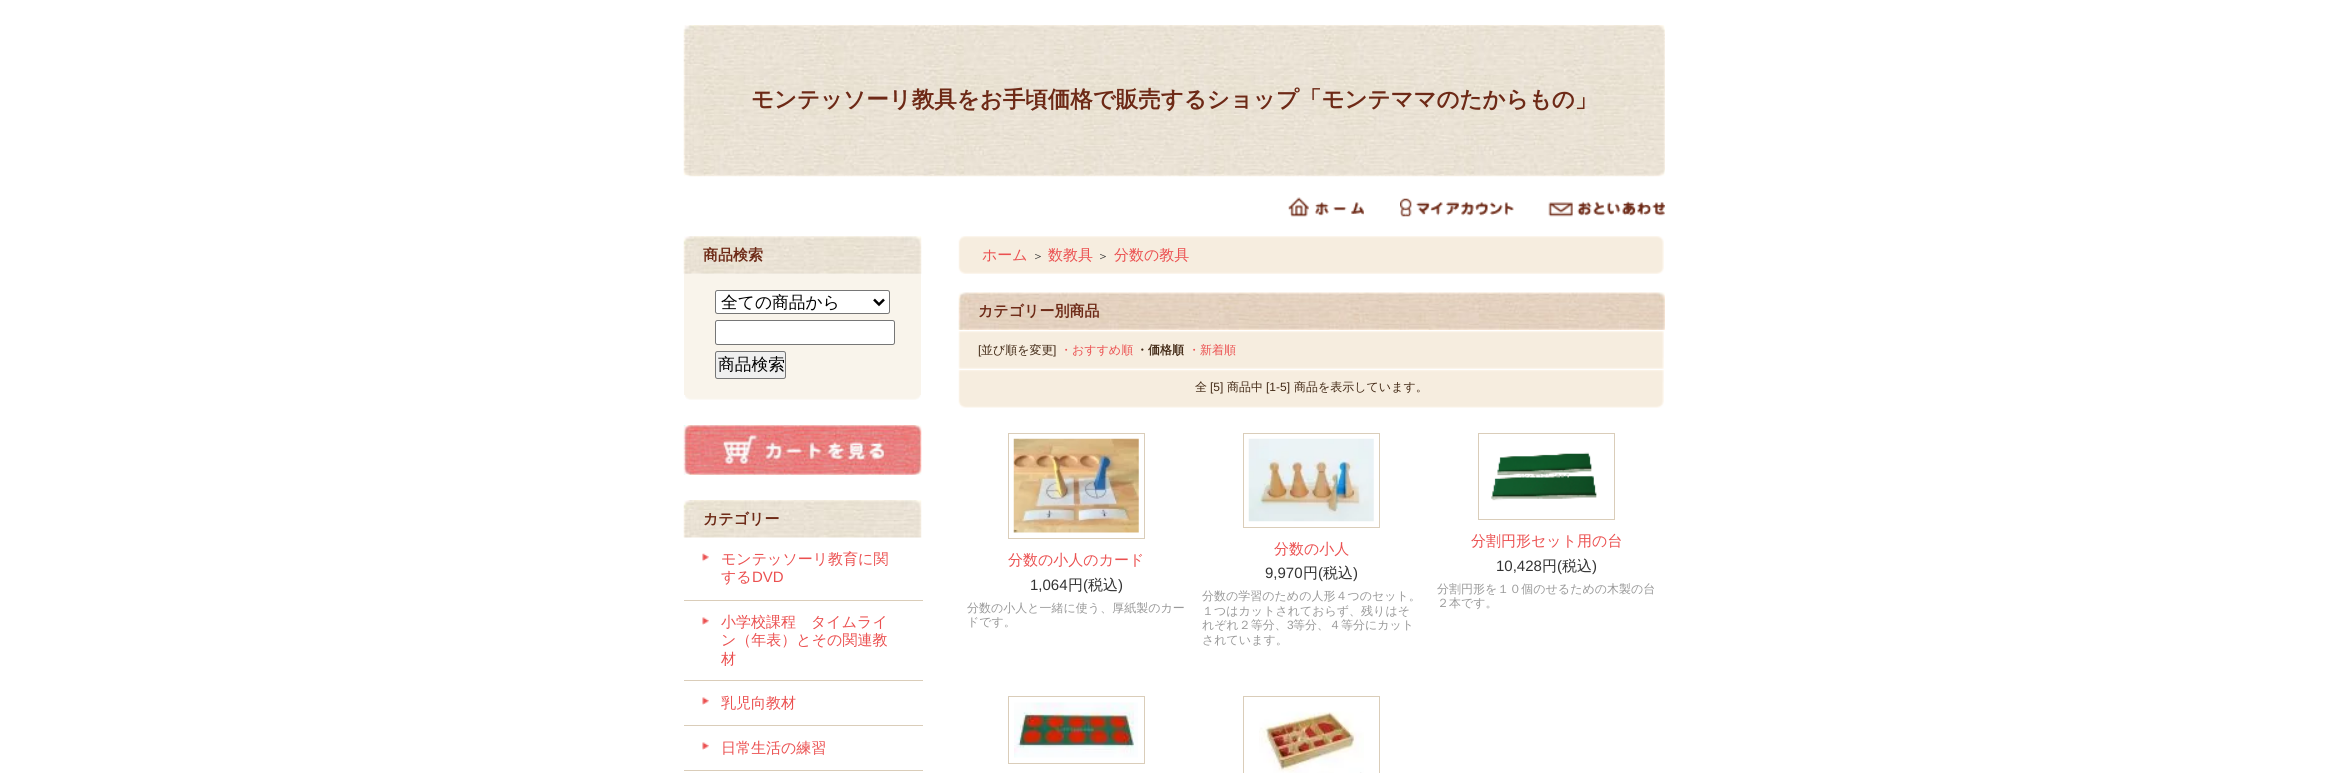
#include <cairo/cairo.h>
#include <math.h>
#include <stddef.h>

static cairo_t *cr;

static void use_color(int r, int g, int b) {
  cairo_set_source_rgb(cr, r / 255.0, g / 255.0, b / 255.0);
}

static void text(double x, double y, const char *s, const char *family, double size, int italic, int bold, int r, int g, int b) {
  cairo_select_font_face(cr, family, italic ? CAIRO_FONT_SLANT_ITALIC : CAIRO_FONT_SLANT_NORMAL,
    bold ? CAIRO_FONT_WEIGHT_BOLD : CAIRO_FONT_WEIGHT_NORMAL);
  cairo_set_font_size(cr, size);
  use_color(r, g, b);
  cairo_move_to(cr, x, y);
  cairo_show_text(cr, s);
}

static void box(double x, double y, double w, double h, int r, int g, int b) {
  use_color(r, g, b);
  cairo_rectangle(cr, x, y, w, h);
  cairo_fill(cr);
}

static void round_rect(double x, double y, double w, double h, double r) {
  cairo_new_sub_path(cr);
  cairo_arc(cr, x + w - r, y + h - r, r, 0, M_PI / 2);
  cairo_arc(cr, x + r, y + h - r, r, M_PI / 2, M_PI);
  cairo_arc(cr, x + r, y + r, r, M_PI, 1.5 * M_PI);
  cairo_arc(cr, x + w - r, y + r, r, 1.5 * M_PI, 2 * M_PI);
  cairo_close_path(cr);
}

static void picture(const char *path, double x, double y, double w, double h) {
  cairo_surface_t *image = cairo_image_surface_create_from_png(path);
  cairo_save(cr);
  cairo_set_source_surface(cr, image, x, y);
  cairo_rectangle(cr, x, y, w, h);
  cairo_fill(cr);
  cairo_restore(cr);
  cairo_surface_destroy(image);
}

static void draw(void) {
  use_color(255, 255, 255);
  cairo_paint(cr);
  picture("img_01.png", 683, 25, 982, 152);
  picture("img_02.png", 1288, 197, 76, 20);
  picture("img_03.png", 1400, 198, 114, 19);
  picture("img_04.png", 1548, 201, 117, 16);
  picture("img_05.png", 683, 236, 239, 38);
  box(684, 274, 237, 121, 249, 244, 235);
  use_color(255, 255, 255);
  round_rect(715.5, 290.5, 174, 23, 2);
  cairo_fill_preserve(cr);
  use_color(118, 118, 118);
  cairo_set_line_width(cr, 1);
  cairo_stroke(cr);
  cairo_new_path(cr);
  cairo_move_to(cr, 874, 299.5);
  cairo_line_to(cr, 879, 304.5);
  cairo_line_to(cr, 884, 299.5);
  use_color(0, 0, 0);
  cairo_set_line_width(cr, 2.5);
  cairo_stroke(cr);
  use_color(255, 255, 255);
  round_rect(715.5, 320.5, 179, 24, 2);
  cairo_fill_preserve(cr);
  use_color(118, 118, 118);
  cairo_set_line_width(cr, 1);
  cairo_stroke(cr);
  use_color(239, 239, 239);
  round_rect(715.5, 351.5, 70, 27, 2);
  cairo_fill_preserve(cr);
  use_color(118, 118, 118);
  cairo_stroke(cr);
  picture("img_06.png", 685, 395, 236, 5);
  picture("img_07.png", 683, 425, 239, 50);
  picture("img_08.png", 683, 500, 239, 38);
  picture("img_09.png", 702, 553, 7, 9);
  box(684, 600, 239, 1, 218, 205, 185);
  picture("img_10.png", 702, 617, 7, 8);
  box(684, 680, 239, 1, 218, 205, 185);
  picture("img_10.png", 702, 697, 7, 8);
  box(684, 725, 239, 1, 218, 205, 185);
  picture("img_10.png", 702, 742, 7, 8);
  box(684, 770, 239, 1, 218, 205, 185);
  picture("img_11.png", 958, 236, 706, 38);
  picture("img_12.png", 958, 292, 707, 38);
  picture("img_13.png", 958, 331, 706, 38);
  picture("img_14.png", 958, 370, 706, 38);
  cairo_rectangle(cr, 1008.5, 433.5, 136, 105);
  cairo_stroke(cr);
  picture("img_15.png", 1013, 438, 126, 95);
  cairo_rectangle(cr, 1243.5, 433.5, 136, 94);
  cairo_stroke(cr);
  picture("img_16.png", 1248, 438, 126, 84);
  cairo_rectangle(cr, 1478.5, 433.5, 136, 86);
  cairo_stroke(cr);
  picture("img_17.png", 1491, 452, 106, 49);
  cairo_rectangle(cr, 1008.5, 696.5, 136, 67);
  cairo_stroke(cr);
  picture("img_18.png", 1014, 702, 124, 56);
  cairo_rectangle(cr, 1243.5, 696.5, 136, 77);
  cairo_stroke(cr);
  picture("img_19.png", 1259, 711, 105, 62);
  text(751, 107, "モンテッソーリ教具をお手頃価格で販売するショップ「モンテママのたからもの」", "WenQuanYi Zen Hei", 22.5, 0, 1, 109, 41, 22);
  text(703, 260, "商品検索", "WenQuanYi Zen Hei", 15, 0, 1, 109, 41, 22);
  text(721, 308, "全ての商品から", "WenQuanYi Zen Hei Medium", 16.75, 0, 0, 0, 0, 0);
  text(718, 370, "商品検索", "WenQuanYi Zen Hei Medium", 16.75, 0, 0, 0, 0, 0);
  text(703, 524, "カテゴリー", "WenQuanYi Zen Hei", 15, 0, 1, 109, 41, 22);
  text(721, 564, "モンテッソーリ教育に関", "WenQuanYi Zen Hei Medium", 15, 0, 0, 235, 80, 80);
  text(721, 582, "する", "WenQuanYi Zen Hei Medium", 15, 0, 0, 235, 80, 80);
  text(752, 582, "DVD", "Liberation Sans", 15, 0, 0, 235, 80, 80);
  text(721, 627, "小学校課程　タイムライ", "WenQuanYi Zen Hei Medium", 15, 0, 0, 235, 80, 80);
  text(721, 645, "ン（年表）とその関連教", "WenQuanYi Zen Hei Medium", 15, 0, 0, 235, 80, 80);
  text(721, 664, "材", "WenQuanYi Zen Hei Medium", 15, 0, 0, 235, 80, 80);
  text(721, 708, "乳児向教材", "WenQuanYi Zen Hei Medium", 15, 0, 0, 235, 80, 80);
  text(721, 753, "日常生活の練習", "WenQuanYi Zen Hei Medium", 15, 0, 0, 235, 80, 80);
  text(982, 260, "ホーム", "WenQuanYi Zen Hei Medium", 15, 0, 0, 235, 80, 80);
  text(1032, 260, "＞", "WenQuanYi Zen Hei Medium", 12, 0, 0, 51, 51, 51);
  text(1048, 260, "数教具", "WenQuanYi Zen Hei Medium", 15, 0, 0, 235, 80, 80);
  text(1097, 260, "＞", "WenQuanYi Zen Hei Medium", 12, 0, 0, 51, 51, 51);
  text(1114, 260, "分数の教具", "WenQuanYi Zen Hei Medium", 15, 0, 0, 235, 80, 80);
  text(978, 316, "カテゴリー別商品", "WenQuanYi Zen Hei", 15, 0, 1, 109, 41, 22);
  text(978, 354, "[", "Liberation Sans", 12, 0, 0, 67, 42, 22);
  text(981, 354, "並び順を変更", "WenQuanYi Zen Hei Medium", 12, 0, 0, 67, 42, 22);
  text(1053, 354, "]", "Liberation Sans", 12, 0, 0, 67, 42, 22);
  text(1060, 354, "・おすすめ順", "WenQuanYi Zen Hei Medium", 12, 0, 0, 235, 80, 80);
  text(1136, 354, "・価格順", "WenQuanYi Zen Hei", 12, 0, 1, 67, 42, 22);
  text(1188, 354, "・新着順", "WenQuanYi Zen Hei Medium", 12, 0, 0, 235, 80, 80);
  text(1195, 391, "全", "WenQuanYi Zen Hei Medium", 12, 0, 0, 67, 42, 22);
  text(1210, 391, "[5]", "Liberation Sans", 12, 0, 0, 67, 42, 22);
  text(1227, 391, "商品中", "WenQuanYi Zen Hei Medium", 12, 0, 0, 67, 42, 22);
  text(1266, 391, "[1-5]", "Liberation Sans", 12, 0, 0, 67, 42, 22);
  text(1294, 391, "商品を表示しています。", "WenQuanYi Zen Hei Medium", 12, 0, 0, 67, 42, 22);
  text(1008, 565, "分数の小人のカード", "WenQuanYi Zen Hei Medium", 15, 0, 0, 235, 80, 80);
  text(1030, 590, "1,064", "Liberation Sans", 15, 0, 0, 51, 51, 51);
  text(1068, 590, "円", "WenQuanYi Zen Hei Medium", 15, 0, 0, 51, 51, 51);
  text(1083, 590, "(", "Liberation Sans", 15, 0, 0, 51, 51, 51);
  text(1088, 590, "税込", "WenQuanYi Zen Hei Medium", 15, 0, 0, 51, 51, 51);
  text(1118, 590, ")", "Liberation Sans", 15, 0, 0, 51, 51, 51);
  text(967, 612, "分数の小人と一緒に使う、厚紙製のカー", "WenQuanYi Zen Hei Medium", 12, 0, 0, 153, 153, 153);
  text(967, 626, "ドです。", "WenQuanYi Zen Hei Medium", 12, 0, 0, 153, 153, 153);
  text(1274, 554, "分数の小人", "WenQuanYi Zen Hei Medium", 15, 0, 0, 235, 80, 80);
  text(1265, 578, "9,970", "Liberation Sans", 15, 0, 0, 51, 51, 51);
  text(1303, 578, "円", "WenQuanYi Zen Hei Medium", 15, 0, 0, 51, 51, 51);
  text(1318, 578, "(", "Liberation Sans", 15, 0, 0, 51, 51, 51);
  text(1323, 578, "税込", "WenQuanYi Zen Hei Medium", 15, 0, 0, 51, 51, 51);
  text(1353, 578, ")", "Liberation Sans", 15, 0, 0, 51, 51, 51);
  text(1202, 600, "分数の学習のための人形４つのセット。", "WenQuanYi Zen Hei Medium", 12, 0, 0, 153, 153, 153);
  text(1202, 615, "１つはカットされておらず、残りはそ", "WenQuanYi Zen Hei Medium", 12, 0, 0, 153, 153, 153);
  text(1202, 629, "れぞれ２等分、", "WenQuanYi Zen Hei Medium", 12, 0, 0, 153, 153, 153);
  text(1287, 629, "3", "Liberation Sans", 12, 0, 0, 153, 153, 153);
  text(1293, 629, "等分、４等分にカット", "WenQuanYi Zen Hei Medium", 12, 0, 0, 153, 153, 153);
  text(1202, 644, "されています。", "WenQuanYi Zen Hei Medium", 12, 0, 0, 153, 153, 153);
  text(1471, 546, "分割円形セット用の台", "WenQuanYi Zen Hei Medium", 15, 0, 0, 235, 80, 80);
  text(1496, 571, "10,428", "Liberation Sans", 15, 0, 0, 51, 51, 51);
  text(1542, 571, "円", "WenQuanYi Zen Hei Medium", 15, 0, 0, 51, 51, 51);
  text(1557, 571, "(", "Liberation Sans", 15, 0, 0, 51, 51, 51);
  text(1562, 571, "税込", "WenQuanYi Zen Hei Medium", 15, 0, 0, 51, 51, 51);
  text(1592, 571, ")", "Liberation Sans", 15, 0, 0, 51, 51, 51);
  text(1437, 593, "分割円形を１０個のせるための木製の台", "WenQuanYi Zen Hei Medium", 12, 0, 0, 153, 153, 153);
  text(1437, 607, "２本です。", "WenQuanYi Zen Hei Medium", 12, 0, 0, 153, 153, 153);
}

int main(void) {
  cairo_surface_t *surface = cairo_image_surface_create(CAIRO_FORMAT_RGB24, 2330, 773);
  cr = cairo_create(surface);
  cairo_font_options_t *options = cairo_font_options_create();
  cairo_font_options_set_hint_metrics(options, CAIRO_HINT_METRICS_OFF);
  cairo_font_options_set_hint_style(options, CAIRO_HINT_STYLE_NONE);
  cairo_set_font_options(cr, options);
  cairo_set_miter_limit(cr, 4);
  draw();
  cairo_surface_write_to_png(surface, "out.png");
  cairo_font_options_destroy(options);
  cairo_destroy(cr);
  cairo_surface_destroy(surface);
  return 0;
}
